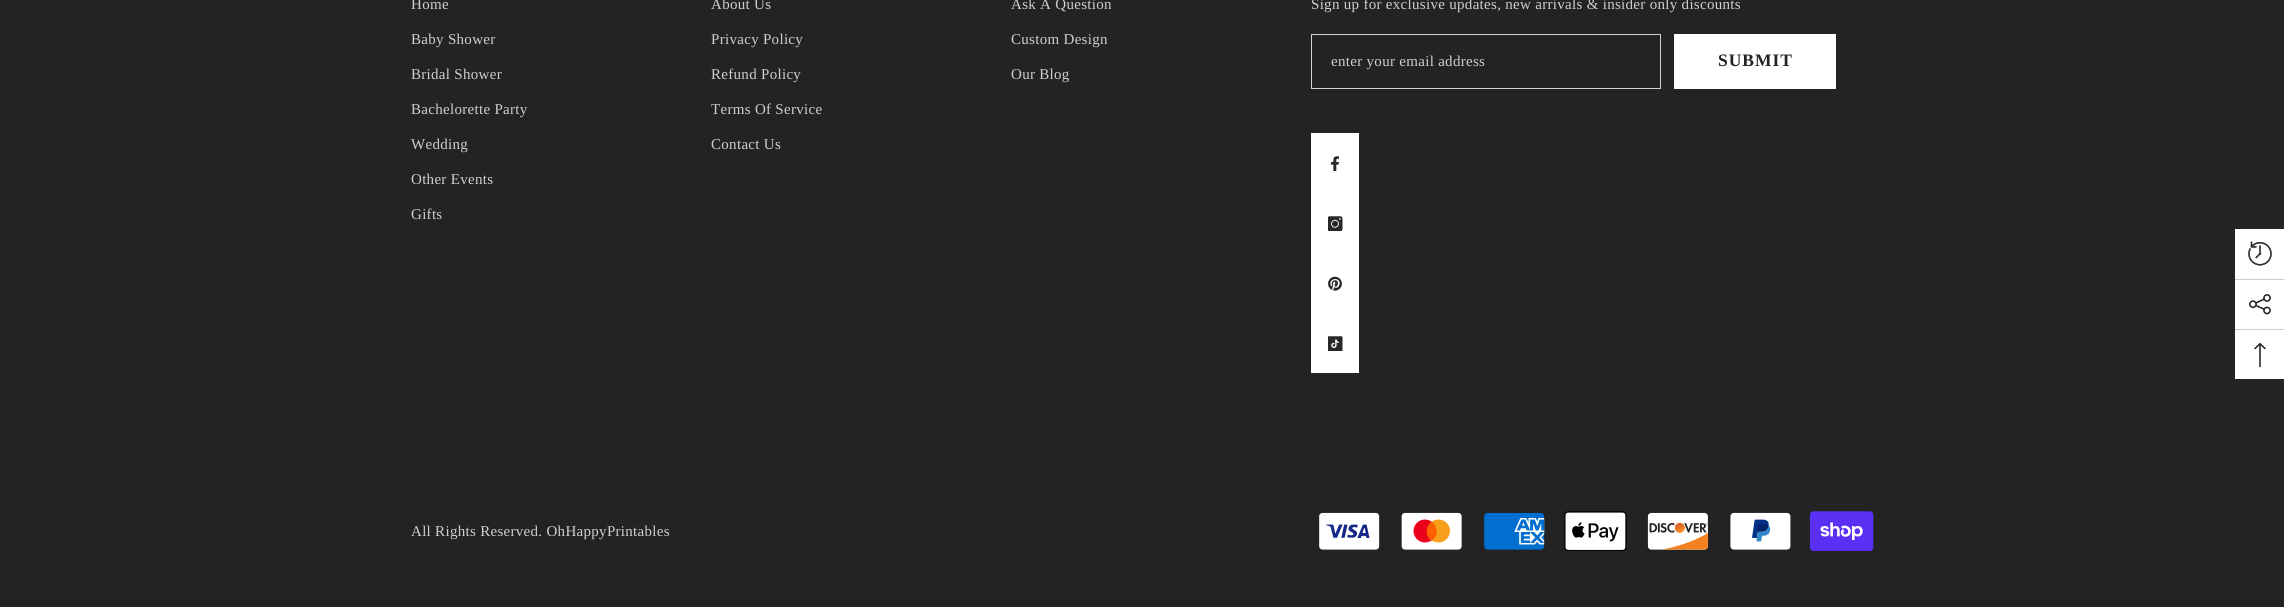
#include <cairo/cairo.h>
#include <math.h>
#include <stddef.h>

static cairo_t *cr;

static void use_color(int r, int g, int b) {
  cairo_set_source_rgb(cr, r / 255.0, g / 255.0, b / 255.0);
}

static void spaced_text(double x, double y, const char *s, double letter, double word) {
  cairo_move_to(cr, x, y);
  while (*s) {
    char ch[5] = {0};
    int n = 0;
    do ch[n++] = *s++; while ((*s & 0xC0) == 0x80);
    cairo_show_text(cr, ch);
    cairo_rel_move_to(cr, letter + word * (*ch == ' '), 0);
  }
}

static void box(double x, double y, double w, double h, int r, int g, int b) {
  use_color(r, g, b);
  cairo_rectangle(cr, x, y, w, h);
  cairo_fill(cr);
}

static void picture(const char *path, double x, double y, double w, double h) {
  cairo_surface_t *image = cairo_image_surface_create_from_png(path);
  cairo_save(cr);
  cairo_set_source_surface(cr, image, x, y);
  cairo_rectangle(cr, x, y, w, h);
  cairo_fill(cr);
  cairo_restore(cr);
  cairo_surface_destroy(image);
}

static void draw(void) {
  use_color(35, 35, 35);
  cairo_paint(cr);
  cairo_rectangle(cr, 1311.5, 34.5, 349, 54);
  use_color(211, 211, 211);
  cairo_set_line_width(cr, 1);
  cairo_stroke(cr);
  box(1674, 34, 162, 55, 255, 255, 255);
  box(1311, 133, 48, 240, 255, 255, 255);
  picture("img_01.png", 1331, 156, 8, 15);
  picture("img_02.png", 1328, 216, 15, 15);
  picture("img_03.png", 1328, 276, 14, 15);
  picture("img_04.png", 1328, 336, 15, 15);
  box(0, 479, 2284, 1, 40, 40, 40);
  picture("img_05.png", 1319, 512, 61, 38);
  picture("img_06.png", 1401, 512, 61, 38);
  picture("img_07.png", 1484, 512, 61, 38);
  picture("img_08.png", 1564, 511, 63, 40);
  picture("img_09.png", 1647, 512, 61, 38);
  picture("img_10.png", 1730, 512, 61, 38);
  picture("img_11.png", 1810, 511, 64, 40);
  box(2235, 229, 49, 150, 255, 255, 255);
  picture("img_12.png", 2248, 241, 24, 25);
  box(2235, 279, 49, 1, 204, 204, 204);
  picture("img_13.png", 2249, 294, 22, 21);
  box(2235, 329, 49, 1, 204, 204, 204);
  picture("img_14.png", 2254, 343, 12, 25);
  cairo_select_font_face(cr, "Liberation Serif", CAIRO_FONT_SLANT_NORMAL, CAIRO_FONT_WEIGHT_NORMAL);
  cairo_set_font_size(cr, 15);
  use_color(207, 207, 207);
  spaced_text(411, 9, "Home", 0.3, 0);
  spaced_text(411, 44, "Baby Shower", 0.3, 0);
  spaced_text(411, 79, "Bridal Shower", 0.3, 0);
  spaced_text(411, 114, "Bachelorette Party", 0.3, 0);
  spaced_text(411, 149, "Wedding", 0.3, 0);
  spaced_text(411, 184, "Other Events", 0.3, 0);
  spaced_text(411, 219, "Gifts", 0.3, 0);
  spaced_text(711, 9, "About Us", 0.3, 0);
  spaced_text(711, 44, "Privacy Policy", 0.3, 0);
  spaced_text(711, 79, "Refund Policy", 0.3, 0);
  spaced_text(711, 114, "Terms Of Service", 0.3, 0);
  spaced_text(711, 149, "Contact Us", 0.3, 0);
  spaced_text(1011, 9, "Ask A Question", 0.3, 0);
  spaced_text(1011, 44, "Custom Design", 0.3, 0);
  spaced_text(1011, 79, "Our Blog", 0.3, 0);
  spaced_text(1311, 9, "Sign up for exclusive updates, new arrivals & insider only discounts", 0.3, 0);
  spaced_text(1331, 66, "enter your email address", 0.3, 0);
  cairo_select_font_face(cr, "Liberation Serif", CAIRO_FONT_SLANT_NORMAL, CAIRO_FONT_WEIGHT_BOLD);
  cairo_set_font_size(cr, 17.5);
  use_color(35, 35, 35);
  spaced_text(1718, 66, "SUBMIT", 1, 0);
  cairo_select_font_face(cr, "Liberation Serif", CAIRO_FONT_SLANT_NORMAL, CAIRO_FONT_WEIGHT_NORMAL);
  cairo_set_font_size(cr, 15);
  use_color(207, 207, 207);
  spaced_text(411, 536, "All Rights Reserved. OhHappyPrintables", 0.3, 0);
}

int main(void) {
  cairo_surface_t *surface = cairo_image_surface_create(CAIRO_FORMAT_RGB24, 2284, 607);
  cr = cairo_create(surface);
  cairo_font_options_t *options = cairo_font_options_create();
  cairo_font_options_set_hint_metrics(options, CAIRO_HINT_METRICS_OFF);
  cairo_font_options_set_hint_style(options, CAIRO_HINT_STYLE_NONE);
  cairo_set_font_options(cr, options);
  cairo_set_miter_limit(cr, 4);
  draw();
  cairo_surface_write_to_png(surface, "out.png");
  cairo_font_options_destroy(options);
  cairo_destroy(cr);
  cairo_surface_destroy(surface);
  return 0;
}
